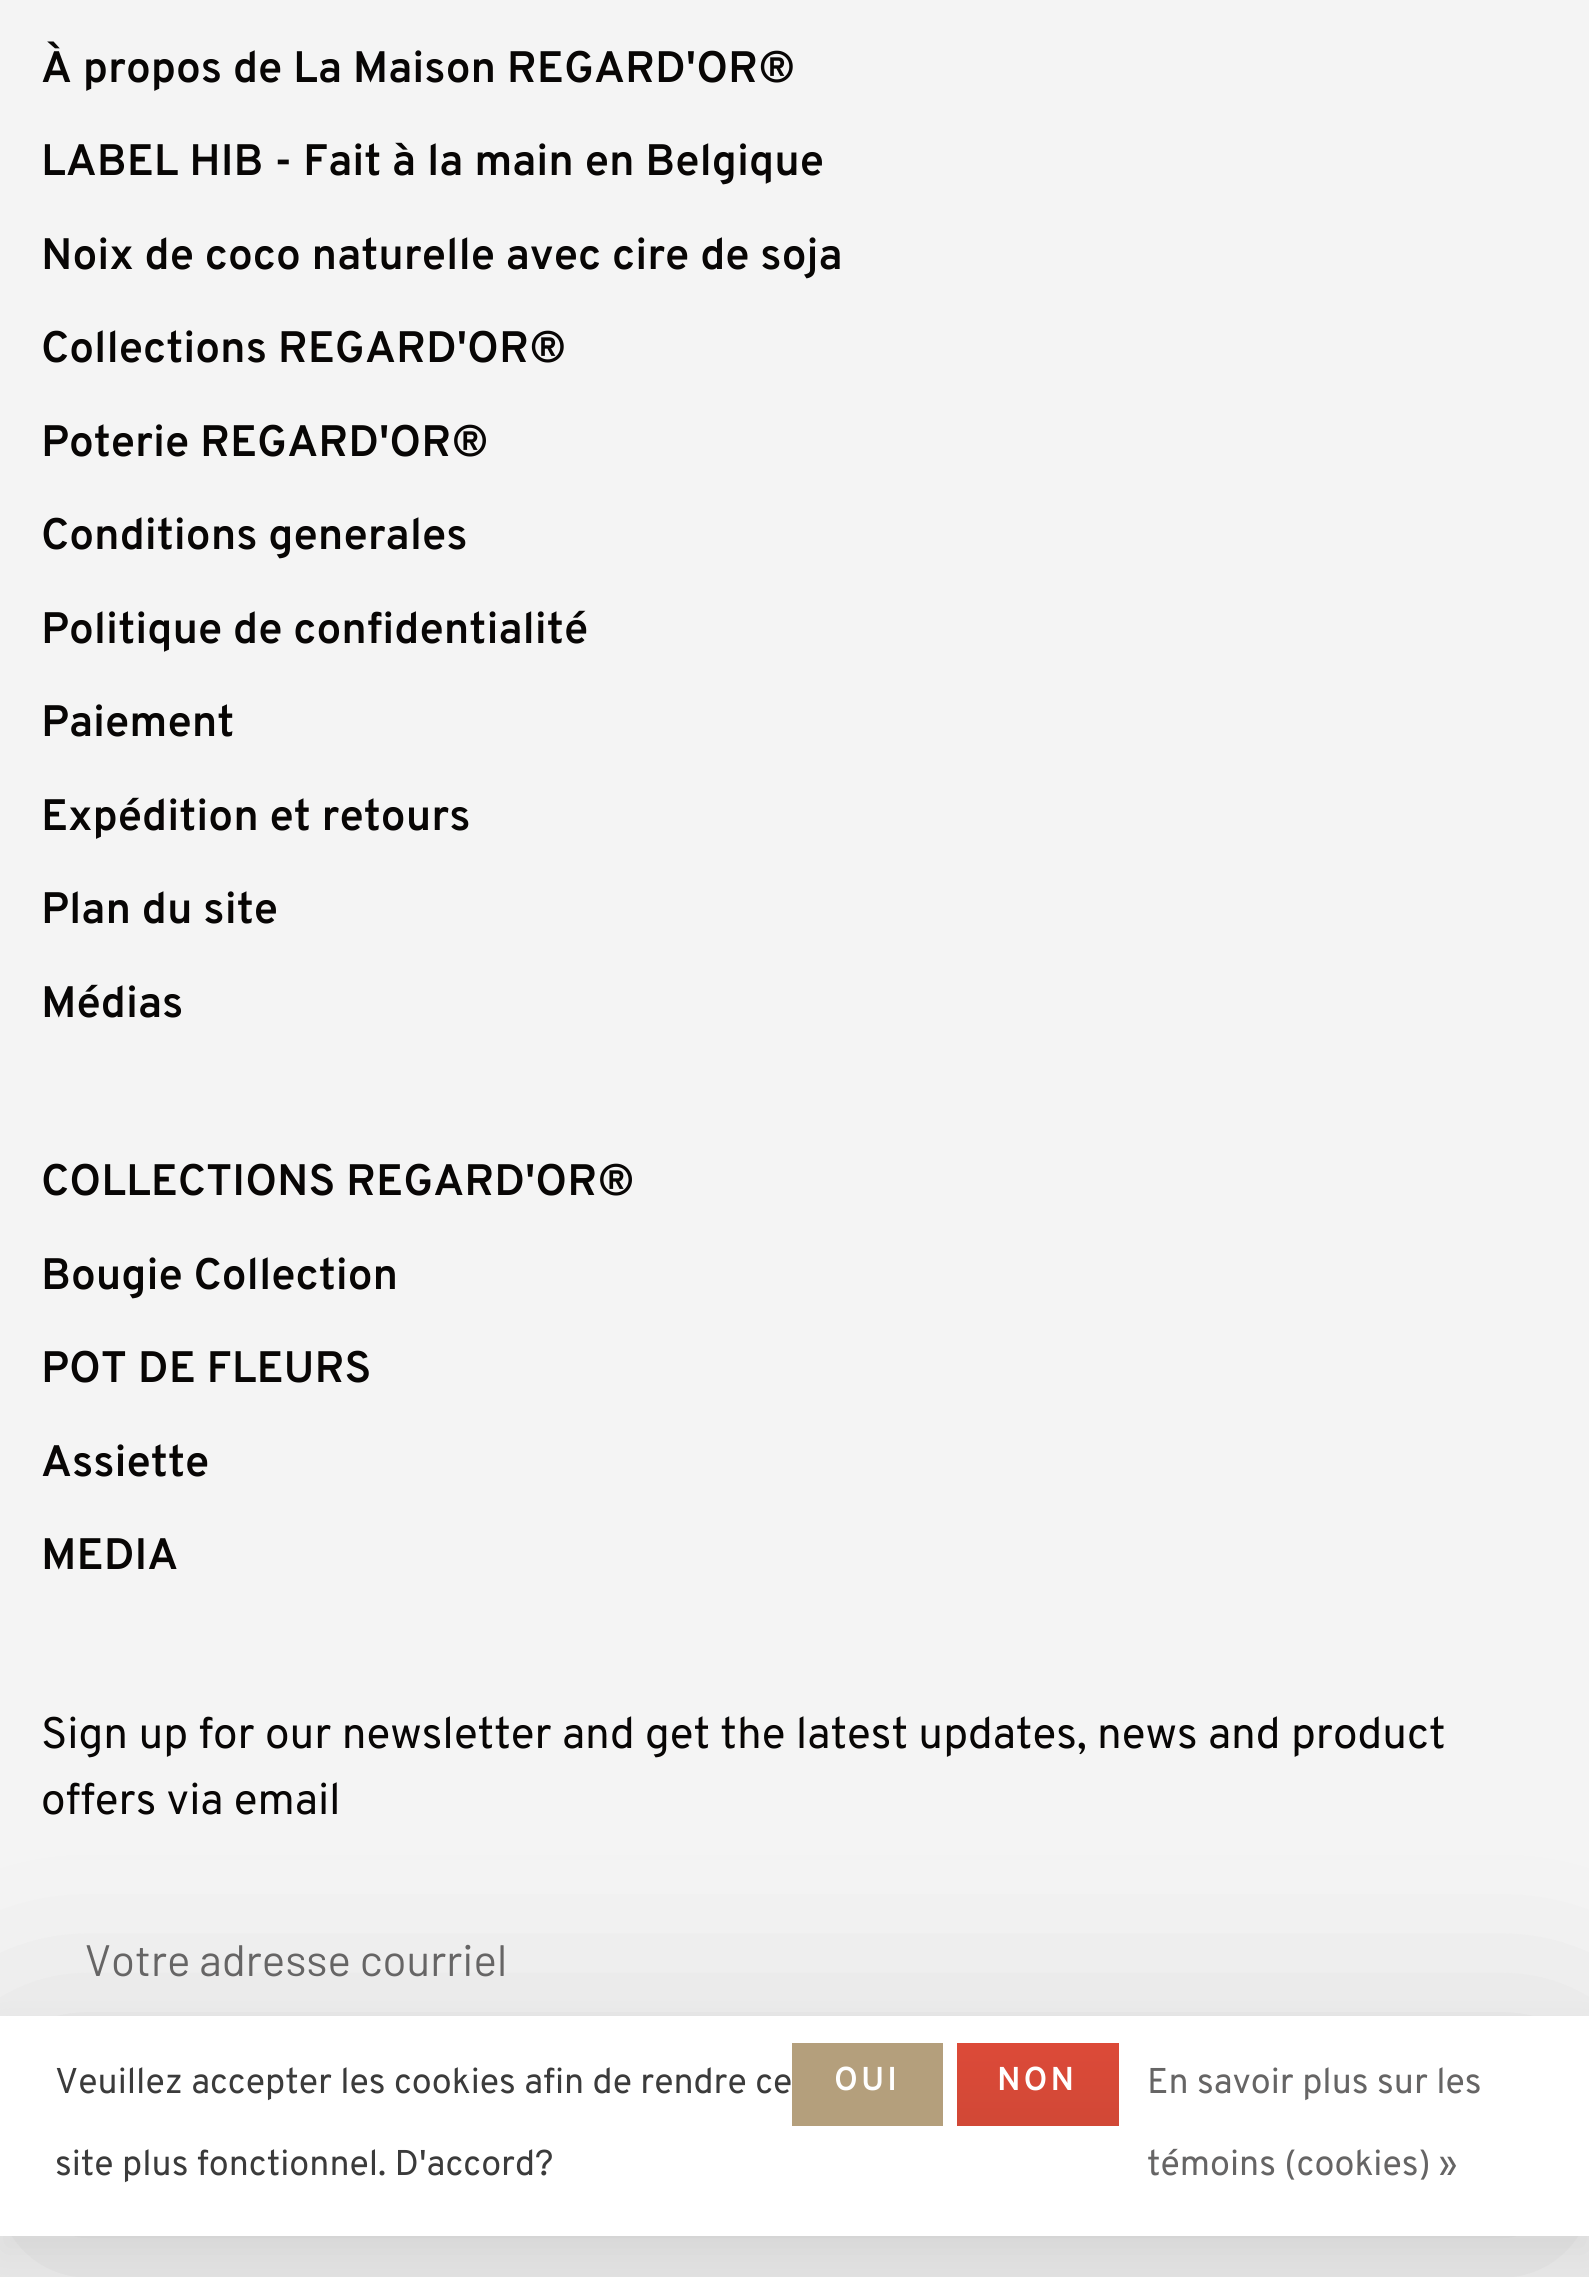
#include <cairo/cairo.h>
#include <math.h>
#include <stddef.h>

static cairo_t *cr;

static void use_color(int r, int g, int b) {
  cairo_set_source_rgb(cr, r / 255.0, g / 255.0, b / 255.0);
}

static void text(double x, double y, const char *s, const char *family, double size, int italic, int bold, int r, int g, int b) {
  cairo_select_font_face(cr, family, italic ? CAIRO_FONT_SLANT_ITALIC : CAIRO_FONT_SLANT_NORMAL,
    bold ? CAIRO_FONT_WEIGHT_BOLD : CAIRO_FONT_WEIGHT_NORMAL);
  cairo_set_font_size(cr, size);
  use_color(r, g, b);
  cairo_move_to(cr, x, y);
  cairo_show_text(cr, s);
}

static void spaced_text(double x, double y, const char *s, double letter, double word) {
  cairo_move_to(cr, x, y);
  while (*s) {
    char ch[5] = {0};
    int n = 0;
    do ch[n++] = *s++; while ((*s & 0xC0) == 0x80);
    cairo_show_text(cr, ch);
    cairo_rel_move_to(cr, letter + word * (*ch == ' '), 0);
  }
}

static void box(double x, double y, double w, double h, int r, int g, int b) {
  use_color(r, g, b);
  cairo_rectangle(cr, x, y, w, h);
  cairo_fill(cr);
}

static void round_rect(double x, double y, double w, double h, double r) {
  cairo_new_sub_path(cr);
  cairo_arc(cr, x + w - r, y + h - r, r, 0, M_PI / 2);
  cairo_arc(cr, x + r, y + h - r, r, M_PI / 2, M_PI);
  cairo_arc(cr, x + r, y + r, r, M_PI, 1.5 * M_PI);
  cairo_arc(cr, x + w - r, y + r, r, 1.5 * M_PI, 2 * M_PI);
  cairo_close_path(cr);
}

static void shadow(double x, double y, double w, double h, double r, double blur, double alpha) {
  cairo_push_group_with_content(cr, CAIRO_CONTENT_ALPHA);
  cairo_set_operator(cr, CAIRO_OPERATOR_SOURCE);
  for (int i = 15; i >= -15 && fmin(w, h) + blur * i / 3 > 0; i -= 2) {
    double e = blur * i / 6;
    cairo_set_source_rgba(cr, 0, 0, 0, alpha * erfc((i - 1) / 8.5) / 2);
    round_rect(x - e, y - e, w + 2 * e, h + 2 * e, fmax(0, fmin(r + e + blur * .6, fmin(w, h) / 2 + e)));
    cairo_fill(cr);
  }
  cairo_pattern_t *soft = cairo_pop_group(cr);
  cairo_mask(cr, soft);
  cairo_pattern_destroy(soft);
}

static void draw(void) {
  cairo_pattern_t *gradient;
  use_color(244, 244, 244);
  cairo_paint(cr);
  use_color(0, 0, 0);
  shadow(0, 2032, 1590, 220, 0, 20.5, 0.05);
  shadow(17, 2071, 1556, 187, 0, 118, 0.15);
  box(0, 2016, 1589, 220, 255, 255, 255);
  box(792, 2043, 151, 83, 180, 159, 124);
  gradient = cairo_pattern_create_linear(1038, 2043, 1038, 2126);
  cairo_pattern_add_color_stop_rgba(gradient, 0, 0.863, 0.29, 0.22, 1);
  cairo_pattern_add_color_stop_rgba(gradient, 1, 0.82, 0.282, 0.212, 1);
  cairo_set_source(cr, gradient);
  cairo_pattern_destroy(gradient);
  cairo_rectangle(cr, 957, 2043, 162, 83);
  cairo_fill(cr);
  text(41, 82, "À propos de La Maison REGARD'OR®", "Overpass SemiBold", 44, 0, 0, 8, 6, 5);
  text(41, 175, "LABEL HIB - Fait à la main en Belgique", "Overpass SemiBold", 44, 0, 0, 8, 6, 5);
  text(41, 269, "Noix de coco naturelle avec cire de soja", "Overpass SemiBold", 44, 0, 0, 8, 6, 5);
  text(41, 362, "Collections REGARD'OR®", "Overpass SemiBold", 44, 0, 0, 8, 6, 5);
  text(41, 456, "Poterie REGARD'OR®", "Overpass SemiBold", 44, 0, 0, 8, 6, 5);
  text(41, 549, "Conditions generales", "Overpass SemiBold", 44, 0, 0, 8, 6, 5);
  text(41, 643, "Politique de confidentialité", "Overpass SemiBold", 44, 0, 0, 8, 6, 5);
  text(41, 736, "Paiement", "Overpass SemiBold", 44, 0, 0, 8, 6, 5);
  text(41, 830, "Expédition et retours", "Overpass SemiBold", 44, 0, 0, 8, 6, 5);
  text(41, 923, "Plan du site", "Overpass SemiBold", 44, 0, 0, 8, 6, 5);
  text(41, 1017, "Médias", "Overpass SemiBold", 44, 0, 0, 8, 6, 5);
  text(41, 1195, "COLLECTIONS REGARD'OR®", "Overpass SemiBold", 44, 0, 0, 8, 6, 5);
  text(41, 1289, "Bougie Collection", "Overpass SemiBold", 44, 0, 0, 8, 6, 5);
  text(41, 1382, "POT DE FLEURS", "Overpass SemiBold", 44, 0, 0, 8, 6, 5);
  text(41, 1476, "Assiette", "Overpass SemiBold", 44, 0, 0, 8, 6, 5);
  text(41, 1569, "MEDIA", "Overpass SemiBold", 44, 0, 0, 8, 6, 5);
  text(41, 1748, "Sign up for our newsletter and get the latest updates, news and product", "Overpass", 44, 0, 0, 8, 6, 5);
  text(41, 1814, "offers via email", "Overpass", 44, 0, 0, 8, 6, 5);
  text(85, 1976, "Votre adresse courriel", "Barlow", 44, 0, 0, 102, 101, 101);
  text(55, 2093, "Veuillez accepter les cookies afin de rendre ce", "Overpass", 35.75, 0, 0, 59, 59, 59);
  cairo_select_font_face(cr, "Overpass SemiBold", CAIRO_FONT_SLANT_NORMAL, CAIRO_FONT_WEIGHT_NORMAL);
  cairo_set_font_size(cr, 33);
  use_color(255, 255, 255);
  spaced_text(834, 2090, "OUI", 3, 0);
  spaced_text(997, 2090, "NON", 3, 0);
  text(1147, 2093, "En savoir plus sur les", "Overpass", 35.75, 0, 0, 102, 101, 101);
  text(1147, 2175, "témoins (cookies) »", "Overpass", 35.75, 0, 0, 102, 101, 101);
  text(55, 2175, "site plus fonctionnel. D'accord?", "Overpass", 35.75, 0, 0, 59, 59, 59);
}

int main(void) {
  cairo_surface_t *surface = cairo_image_surface_create(CAIRO_FORMAT_RGB24, 1589, 2277);
  cr = cairo_create(surface);
  cairo_font_options_t *options = cairo_font_options_create();
  cairo_font_options_set_hint_metrics(options, CAIRO_HINT_METRICS_OFF);
  cairo_font_options_set_hint_style(options, CAIRO_HINT_STYLE_NONE);
  cairo_set_font_options(cr, options);
  cairo_set_miter_limit(cr, 4);
  draw();
  cairo_surface_write_to_png(surface, "out.png");
  cairo_font_options_destroy(options);
  cairo_destroy(cr);
  cairo_surface_destroy(surface);
  return 0;
}
